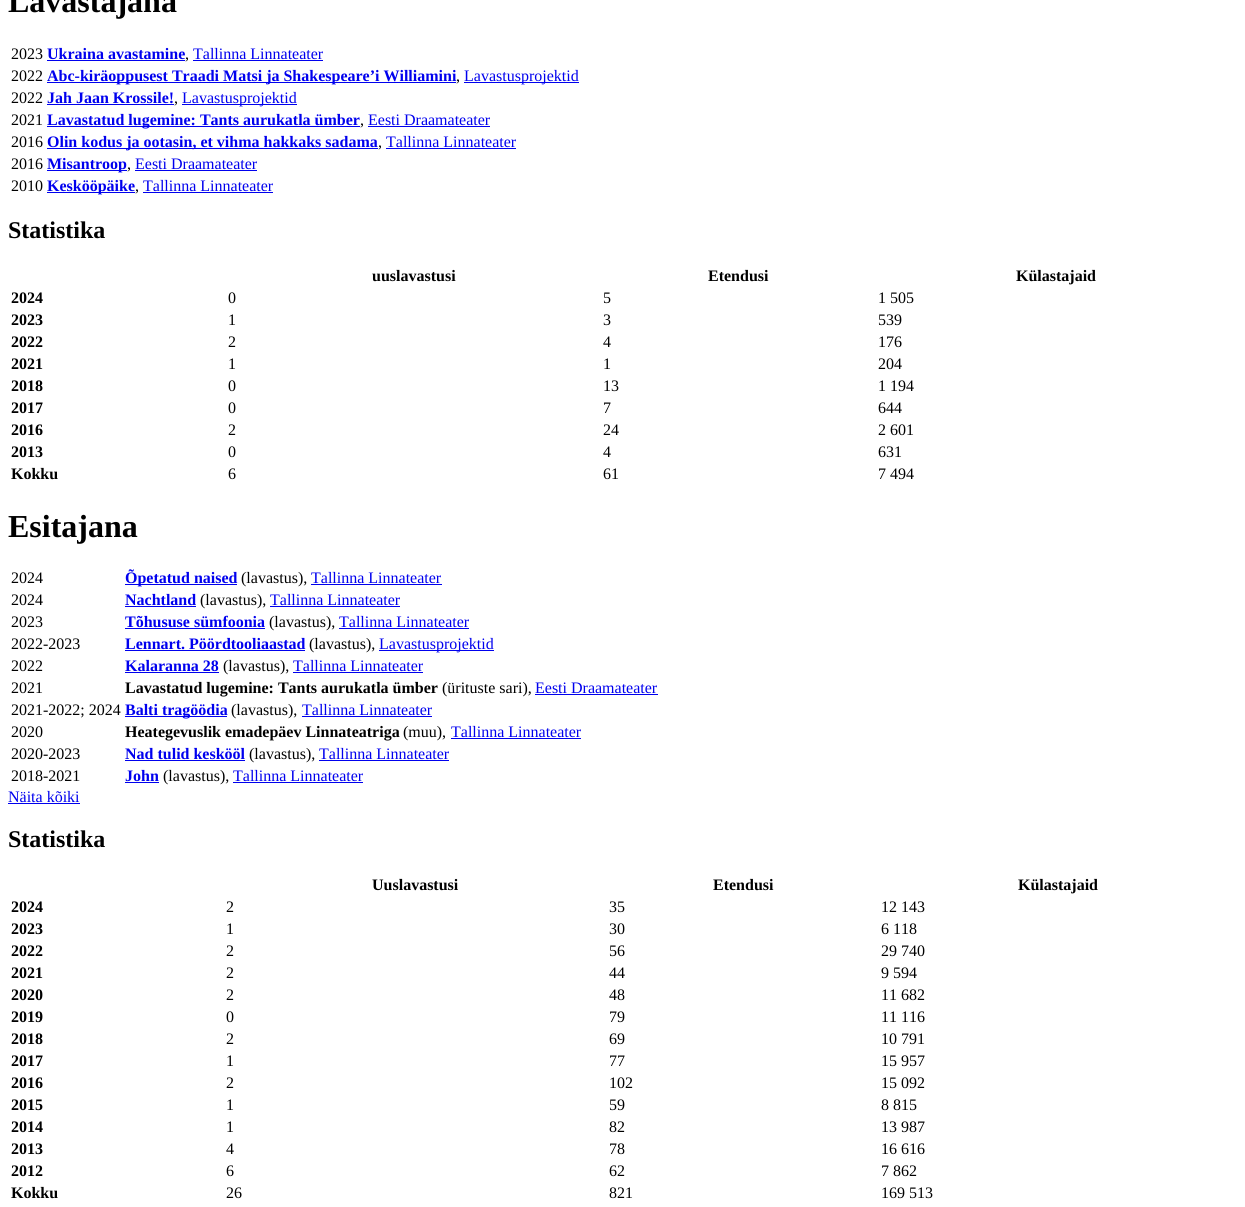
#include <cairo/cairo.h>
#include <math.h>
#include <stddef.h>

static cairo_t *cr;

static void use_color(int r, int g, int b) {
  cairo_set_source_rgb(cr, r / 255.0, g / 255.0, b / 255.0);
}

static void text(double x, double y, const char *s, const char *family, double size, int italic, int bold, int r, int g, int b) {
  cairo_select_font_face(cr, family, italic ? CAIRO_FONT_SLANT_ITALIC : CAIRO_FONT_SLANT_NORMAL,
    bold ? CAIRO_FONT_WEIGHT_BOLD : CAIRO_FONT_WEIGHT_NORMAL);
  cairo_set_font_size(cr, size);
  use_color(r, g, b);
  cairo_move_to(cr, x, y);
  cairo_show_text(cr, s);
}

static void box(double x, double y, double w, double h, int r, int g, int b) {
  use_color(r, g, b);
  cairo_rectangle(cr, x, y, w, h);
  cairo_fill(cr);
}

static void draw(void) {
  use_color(255, 255, 255);
  cairo_paint(cr);
  box(47, 60, 138, 1, 0, 0, 238);
  box(193, 60, 130, 1, 0, 0, 238);
  box(47, 82, 409, 1, 0, 0, 238);
  box(464, 82, 115, 1, 0, 0, 238);
  box(47, 104, 127, 1, 0, 0, 238);
  box(182, 104, 115, 1, 0, 0, 238);
  box(47, 126, 313, 1, 0, 0, 238);
  box(368, 126, 122, 1, 0, 0, 238);
  box(47, 148, 331, 1, 0, 0, 238);
  box(386, 148, 130, 1, 0, 0, 238);
  box(47, 170, 80, 1, 0, 0, 238);
  box(135, 170, 122, 1, 0, 0, 238);
  box(47, 192, 88, 1, 0, 0, 238);
  box(143, 192, 130, 1, 0, 0, 238);
  box(125, 584, 112, 1, 0, 0, 238);
  box(311, 584, 131, 1, 0, 0, 238);
  box(125, 606, 71, 1, 0, 0, 238);
  box(270, 606, 130, 1, 0, 0, 238);
  box(125, 628, 140, 1, 0, 0, 238);
  box(339, 628, 130, 1, 0, 0, 238);
  box(125, 650, 180, 1, 0, 0, 238);
  box(379, 650, 115, 1, 0, 0, 238);
  box(125, 672, 94, 1, 0, 0, 238);
  box(293, 672, 130, 1, 0, 0, 238);
  box(535, 694, 123, 1, 0, 0, 238);
  box(125, 716, 102, 1, 0, 0, 238);
  box(302, 716, 130, 1, 0, 0, 238);
  box(451, 738, 130, 1, 0, 0, 238);
  box(125, 760, 120, 1, 0, 0, 238);
  box(319, 760, 130, 1, 0, 0, 238);
  box(125, 782, 34, 1, 0, 0, 238);
  box(233, 782, 130, 1, 0, 0, 238);
  box(8, 803, 72, 1, 0, 0, 238);
  text(8, 12, "Lavastajana", "Liberation Serif", 32, 0, 1, 0, 0, 0);
  text(11, 59, "2023", "Liberation Serif", 16, 0, 0, 0, 0, 0);
  text(47, 59, "Ukraina avastamine", "Liberation Serif", 16, 0, 1, 0, 0, 238);
  text(185, 59, ",", "Liberation Serif", 16, 0, 0, 0, 0, 0);
  text(193, 59, "Tallinna Linnateater", "Liberation Serif", 16, 0, 0, 0, 0, 238);
  text(11, 81, "2022", "Liberation Serif", 16, 0, 0, 0, 0, 0);
  text(47, 81, "Abc-kiräoppusest Traadi Matsi ja Shakespeare’i Williamini", "Liberation Serif", 16, 0, 1, 0, 0, 238);
  text(456, 81, ",", "Liberation Serif", 16, 0, 0, 0, 0, 0);
  text(464, 81, "Lavastusprojektid", "Liberation Serif", 16, 0, 0, 0, 0, 238);
  text(11, 103, "2022", "Liberation Serif", 16, 0, 0, 0, 0, 0);
  text(47, 103, "Jah Jaan Krossile!", "Liberation Serif", 16, 0, 1, 0, 0, 238);
  text(174, 103, ",", "Liberation Serif", 16, 0, 0, 0, 0, 0);
  text(182, 103, "Lavastusprojektid", "Liberation Serif", 16, 0, 0, 0, 0, 238);
  text(11, 125, "2021", "Liberation Serif", 16, 0, 0, 0, 0, 0);
  text(47, 125, "Lavastatud lugemine: Tants aurukatla ümber", "Liberation Serif", 16, 0, 1, 0, 0, 238);
  text(360, 125, ",", "Liberation Serif", 16, 0, 0, 0, 0, 0);
  text(368, 125, "Eesti Draamateater", "Liberation Serif", 16, 0, 0, 0, 0, 238);
  text(11, 147, "2016", "Liberation Serif", 16, 0, 0, 0, 0, 0);
  text(47, 147, "Olin kodus ja ootasin, et vihma hakkaks sadama", "Liberation Serif", 16, 0, 1, 0, 0, 238);
  text(378, 147, ",", "Liberation Serif", 16, 0, 0, 0, 0, 0);
  text(386, 147, "Tallinna Linnateater", "Liberation Serif", 16, 0, 0, 0, 0, 238);
  text(11, 169, "2016", "Liberation Serif", 16, 0, 0, 0, 0, 0);
  text(47, 169, "Misantroop", "Liberation Serif", 16, 0, 1, 0, 0, 238);
  text(127, 169, ",", "Liberation Serif", 16, 0, 0, 0, 0, 0);
  text(135, 169, "Eesti Draamateater", "Liberation Serif", 16, 0, 0, 0, 0, 238);
  text(11, 191, "2010", "Liberation Serif", 16, 0, 0, 0, 0, 0);
  text(47, 191, "Keskööpäike", "Liberation Serif", 16, 0, 1, 0, 0, 238);
  text(135, 191, ",", "Liberation Serif", 16, 0, 0, 0, 0, 0);
  text(143, 191, "Tallinna Linnateater", "Liberation Serif", 16, 0, 0, 0, 0, 238);
  text(8, 238, "Statistika", "Liberation Serif", 24, 0, 1, 0, 0, 0);
  text(372, 281, "uuslavastusi", "Liberation Serif", 16, 0, 1, 0, 0, 0);
  text(708, 281, "Etendusi", "Liberation Serif", 16, 0, 1, 0, 0, 0);
  text(1016, 281, "Külastajaid", "Liberation Serif", 16, 0, 1, 0, 0, 0);
  text(11, 303, "2024", "Liberation Serif", 16, 0, 1, 0, 0, 0);
  text(228, 303, "0", "Liberation Serif", 16, 0, 0, 0, 0, 0);
  text(603, 303, "5", "Liberation Serif", 16, 0, 0, 0, 0, 0);
  text(878, 303, "1 505", "Liberation Serif", 16, 0, 0, 0, 0, 0);
  text(11, 325, "2023", "Liberation Serif", 16, 0, 1, 0, 0, 0);
  text(228, 325, "1", "Liberation Serif", 16, 0, 0, 0, 0, 0);
  text(603, 325, "3", "Liberation Serif", 16, 0, 0, 0, 0, 0);
  text(878, 325, "539", "Liberation Serif", 16, 0, 0, 0, 0, 0);
  text(11, 347, "2022", "Liberation Serif", 16, 0, 1, 0, 0, 0);
  text(228, 347, "2", "Liberation Serif", 16, 0, 0, 0, 0, 0);
  text(603, 347, "4", "Liberation Serif", 16, 0, 0, 0, 0, 0);
  text(878, 347, "176", "Liberation Serif", 16, 0, 0, 0, 0, 0);
  text(11, 369, "2021", "Liberation Serif", 16, 0, 1, 0, 0, 0);
  text(228, 369, "1", "Liberation Serif", 16, 0, 0, 0, 0, 0);
  text(603, 369, "1", "Liberation Serif", 16, 0, 0, 0, 0, 0);
  text(878, 369, "204", "Liberation Serif", 16, 0, 0, 0, 0, 0);
  text(11, 391, "2018", "Liberation Serif", 16, 0, 1, 0, 0, 0);
  text(228, 391, "0", "Liberation Serif", 16, 0, 0, 0, 0, 0);
  text(603, 391, "13", "Liberation Serif", 16, 0, 0, 0, 0, 0);
  text(878, 391, "1 194", "Liberation Serif", 16, 0, 0, 0, 0, 0);
  text(11, 413, "2017", "Liberation Serif", 16, 0, 1, 0, 0, 0);
  text(228, 413, "0", "Liberation Serif", 16, 0, 0, 0, 0, 0);
  text(603, 413, "7", "Liberation Serif", 16, 0, 0, 0, 0, 0);
  text(878, 413, "644", "Liberation Serif", 16, 0, 0, 0, 0, 0);
  text(11, 435, "2016", "Liberation Serif", 16, 0, 1, 0, 0, 0);
  text(228, 435, "2", "Liberation Serif", 16, 0, 0, 0, 0, 0);
  text(603, 435, "24", "Liberation Serif", 16, 0, 0, 0, 0, 0);
  text(878, 435, "2 601", "Liberation Serif", 16, 0, 0, 0, 0, 0);
  text(11, 457, "2013", "Liberation Serif", 16, 0, 1, 0, 0, 0);
  text(228, 457, "0", "Liberation Serif", 16, 0, 0, 0, 0, 0);
  text(603, 457, "4", "Liberation Serif", 16, 0, 0, 0, 0, 0);
  text(878, 457, "631", "Liberation Serif", 16, 0, 0, 0, 0, 0);
  text(11, 479, "Kokku", "Liberation Serif", 16, 0, 1, 0, 0, 0);
  text(228, 479, "6", "Liberation Serif", 16, 0, 0, 0, 0, 0);
  text(603, 479, "61", "Liberation Serif", 16, 0, 0, 0, 0, 0);
  text(878, 479, "7 494", "Liberation Serif", 16, 0, 0, 0, 0, 0);
  text(8, 537, "Esitajana", "Liberation Serif", 32, 0, 1, 0, 0, 0);
  text(11, 583, "2024", "Liberation Serif", 16, 0, 0, 0, 0, 0);
  text(125, 583, "Õpetatud naised", "Liberation Serif", 16, 0, 1, 0, 0, 238);
  text(241, 583, "(lavastus),", "Liberation Serif", 16, 0, 0, 0, 0, 0);
  text(311, 583, "Tallinna Linnateater", "Liberation Serif", 16, 0, 0, 0, 0, 238);
  text(11, 605, "2024", "Liberation Serif", 16, 0, 0, 0, 0, 0);
  text(125, 605, "Nachtland", "Liberation Serif", 16, 0, 1, 0, 0, 238);
  text(200, 605, "(lavastus),", "Liberation Serif", 16, 0, 0, 0, 0, 0);
  text(270, 605, "Tallinna Linnateater", "Liberation Serif", 16, 0, 0, 0, 0, 238);
  text(11, 627, "2023", "Liberation Serif", 16, 0, 0, 0, 0, 0);
  text(125, 627, "Tõhususe sümfoonia", "Liberation Serif", 16, 0, 1, 0, 0, 238);
  text(269, 627, "(lavastus),", "Liberation Serif", 16, 0, 0, 0, 0, 0);
  text(339, 627, "Tallinna Linnateater", "Liberation Serif", 16, 0, 0, 0, 0, 238);
  text(11, 649, "2022-2023", "Liberation Serif", 16, 0, 0, 0, 0, 0);
  text(125, 649, "Lennart. Pöördtooliaastad", "Liberation Serif", 16, 0, 1, 0, 0, 238);
  text(309, 649, "(lavastus),", "Liberation Serif", 16, 0, 0, 0, 0, 0);
  text(379, 649, "Lavastusprojektid", "Liberation Serif", 16, 0, 0, 0, 0, 238);
  text(11, 671, "2022", "Liberation Serif", 16, 0, 0, 0, 0, 0);
  text(125, 671, "Kalaranna 28", "Liberation Serif", 16, 0, 1, 0, 0, 238);
  text(223, 671, "(lavastus),", "Liberation Serif", 16, 0, 0, 0, 0, 0);
  text(293, 671, "Tallinna Linnateater", "Liberation Serif", 16, 0, 0, 0, 0, 238);
  text(11, 693, "2021", "Liberation Serif", 16, 0, 0, 0, 0, 0);
  text(125, 693, "Lavastatud lugemine: Tants aurukatla ümber", "Liberation Serif", 16, 0, 1, 0, 0, 0);
  text(442, 693, "(ürituste sari),", "Liberation Serif", 16, 0, 0, 0, 0, 0);
  text(535, 693, "Eesti Draamateater", "Liberation Serif", 16, 0, 0, 0, 0, 238);
  text(11, 715, "2021-2022; 2024", "Liberation Serif", 16, 0, 0, 0, 0, 0);
  text(125, 715, "Balti tragöödia", "Liberation Serif", 16, 0, 1, 0, 0, 238);
  text(231, 715, "(lavastus),", "Liberation Serif", 16, 0, 0, 0, 0, 0);
  text(302, 715, "Tallinna Linnateater", "Liberation Serif", 16, 0, 0, 0, 0, 238);
  text(11, 737, "2020", "Liberation Serif", 16, 0, 0, 0, 0, 0);
  text(125, 737, "Heategevuslik emadepäev Linnateatriga", "Liberation Serif", 16, 0, 1, 0, 0, 0);
  text(403, 737, "(muu),", "Liberation Serif", 16, 0, 0, 0, 0, 0);
  text(451, 737, "Tallinna Linnateater", "Liberation Serif", 16, 0, 0, 0, 0, 238);
  text(11, 759, "2020-2023", "Liberation Serif", 16, 0, 0, 0, 0, 0);
  text(125, 759, "Nad tulid keskööl", "Liberation Serif", 16, 0, 1, 0, 0, 238);
  text(249, 759, "(lavastus),", "Liberation Serif", 16, 0, 0, 0, 0, 0);
  text(319, 759, "Tallinna Linnateater", "Liberation Serif", 16, 0, 0, 0, 0, 238);
  text(11, 781, "2018-2021", "Liberation Serif", 16, 0, 0, 0, 0, 0);
  text(125, 781, "John", "Liberation Serif", 16, 0, 1, 0, 0, 238);
  text(163, 781, "(lavastus),", "Liberation Serif", 16, 0, 0, 0, 0, 0);
  text(233, 781, "Tallinna Linnateater", "Liberation Serif", 16, 0, 0, 0, 0, 238);
  text(8, 802, "Näita kõiki", "Liberation Serif", 16, 0, 0, 0, 0, 238);
  text(8, 847, "Statistika", "Liberation Serif", 24, 0, 1, 0, 0, 0);
  text(372, 890, "Uuslavastusi", "Liberation Serif", 16, 0, 1, 0, 0, 0);
  text(713, 890, "Etendusi", "Liberation Serif", 16, 0, 1, 0, 0, 0);
  text(1018, 890, "Külastajaid", "Liberation Serif", 16, 0, 1, 0, 0, 0);
  text(11, 912, "2024", "Liberation Serif", 16, 0, 1, 0, 0, 0);
  text(226, 912, "2", "Liberation Serif", 16, 0, 0, 0, 0, 0);
  text(609, 912, "35", "Liberation Serif", 16, 0, 0, 0, 0, 0);
  text(881, 912, "12 143", "Liberation Serif", 16, 0, 0, 0, 0, 0);
  text(11, 934, "2023", "Liberation Serif", 16, 0, 1, 0, 0, 0);
  text(226, 934, "1", "Liberation Serif", 16, 0, 0, 0, 0, 0);
  text(609, 934, "30", "Liberation Serif", 16, 0, 0, 0, 0, 0);
  text(881, 934, "6 118", "Liberation Serif", 16, 0, 0, 0, 0, 0);
  text(11, 956, "2022", "Liberation Serif", 16, 0, 1, 0, 0, 0);
  text(226, 956, "2", "Liberation Serif", 16, 0, 0, 0, 0, 0);
  text(609, 956, "56", "Liberation Serif", 16, 0, 0, 0, 0, 0);
  text(881, 956, "29 740", "Liberation Serif", 16, 0, 0, 0, 0, 0);
  text(11, 978, "2021", "Liberation Serif", 16, 0, 1, 0, 0, 0);
  text(226, 978, "2", "Liberation Serif", 16, 0, 0, 0, 0, 0);
  text(609, 978, "44", "Liberation Serif", 16, 0, 0, 0, 0, 0);
  text(881, 978, "9 594", "Liberation Serif", 16, 0, 0, 0, 0, 0);
  text(11, 1000, "2020", "Liberation Serif", 16, 0, 1, 0, 0, 0);
  text(226, 1000, "2", "Liberation Serif", 16, 0, 0, 0, 0, 0);
  text(609, 1000, "48", "Liberation Serif", 16, 0, 0, 0, 0, 0);
  text(881, 1000, "11 682", "Liberation Serif", 16, 0, 0, 0, 0, 0);
  text(11, 1022, "2019", "Liberation Serif", 16, 0, 1, 0, 0, 0);
  text(226, 1022, "0", "Liberation Serif", 16, 0, 0, 0, 0, 0);
  text(609, 1022, "79", "Liberation Serif", 16, 0, 0, 0, 0, 0);
  text(881, 1022, "11 116", "Liberation Serif", 16, 0, 0, 0, 0, 0);
  text(11, 1044, "2018", "Liberation Serif", 16, 0, 1, 0, 0, 0);
  text(226, 1044, "2", "Liberation Serif", 16, 0, 0, 0, 0, 0);
  text(609, 1044, "69", "Liberation Serif", 16, 0, 0, 0, 0, 0);
  text(881, 1044, "10 791", "Liberation Serif", 16, 0, 0, 0, 0, 0);
  text(11, 1066, "2017", "Liberation Serif", 16, 0, 1, 0, 0, 0);
  text(226, 1066, "1", "Liberation Serif", 16, 0, 0, 0, 0, 0);
  text(609, 1066, "77", "Liberation Serif", 16, 0, 0, 0, 0, 0);
  text(881, 1066, "15 957", "Liberation Serif", 16, 0, 0, 0, 0, 0);
  text(11, 1088, "2016", "Liberation Serif", 16, 0, 1, 0, 0, 0);
  text(226, 1088, "2", "Liberation Serif", 16, 0, 0, 0, 0, 0);
  text(609, 1088, "102", "Liberation Serif", 16, 0, 0, 0, 0, 0);
  text(881, 1088, "15 092", "Liberation Serif", 16, 0, 0, 0, 0, 0);
  text(11, 1110, "2015", "Liberation Serif", 16, 0, 1, 0, 0, 0);
  text(226, 1110, "1", "Liberation Serif", 16, 0, 0, 0, 0, 0);
  text(609, 1110, "59", "Liberation Serif", 16, 0, 0, 0, 0, 0);
  text(881, 1110, "8 815", "Liberation Serif", 16, 0, 0, 0, 0, 0);
  text(11, 1132, "2014", "Liberation Serif", 16, 0, 1, 0, 0, 0);
  text(226, 1132, "1", "Liberation Serif", 16, 0, 0, 0, 0, 0);
  text(609, 1132, "82", "Liberation Serif", 16, 0, 0, 0, 0, 0);
  text(881, 1132, "13 987", "Liberation Serif", 16, 0, 0, 0, 0, 0);
  text(11, 1154, "2013", "Liberation Serif", 16, 0, 1, 0, 0, 0);
  text(226, 1154, "4", "Liberation Serif", 16, 0, 0, 0, 0, 0);
  text(609, 1154, "78", "Liberation Serif", 16, 0, 0, 0, 0, 0);
  text(881, 1154, "16 616", "Liberation Serif", 16, 0, 0, 0, 0, 0);
  text(11, 1176, "2012", "Liberation Serif", 16, 0, 1, 0, 0, 0);
  text(226, 1176, "6", "Liberation Serif", 16, 0, 0, 0, 0, 0);
  text(609, 1176, "62", "Liberation Serif", 16, 0, 0, 0, 0, 0);
  text(881, 1176, "7 862", "Liberation Serif", 16, 0, 0, 0, 0, 0);
  text(11, 1198, "Kokku", "Liberation Serif", 16, 0, 1, 0, 0, 0);
  text(226, 1198, "26", "Liberation Serif", 16, 0, 0, 0, 0, 0);
  text(609, 1198, "821", "Liberation Serif", 16, 0, 0, 0, 0, 0);
  text(881, 1198, "169 513", "Liberation Serif", 16, 0, 0, 0, 0, 0);
}

int main(void) {
  cairo_surface_t *surface = cairo_image_surface_create(CAIRO_FORMAT_RGB24, 1245, 1207);
  cr = cairo_create(surface);
  cairo_font_options_t *options = cairo_font_options_create();
  cairo_font_options_set_hint_metrics(options, CAIRO_HINT_METRICS_OFF);
  cairo_font_options_set_hint_style(options, CAIRO_HINT_STYLE_NONE);
  cairo_set_font_options(cr, options);
  cairo_set_miter_limit(cr, 4);
  draw();
  cairo_surface_write_to_png(surface, "out.png");
  cairo_font_options_destroy(options);
  cairo_destroy(cr);
  cairo_surface_destroy(surface);
  return 0;
}
